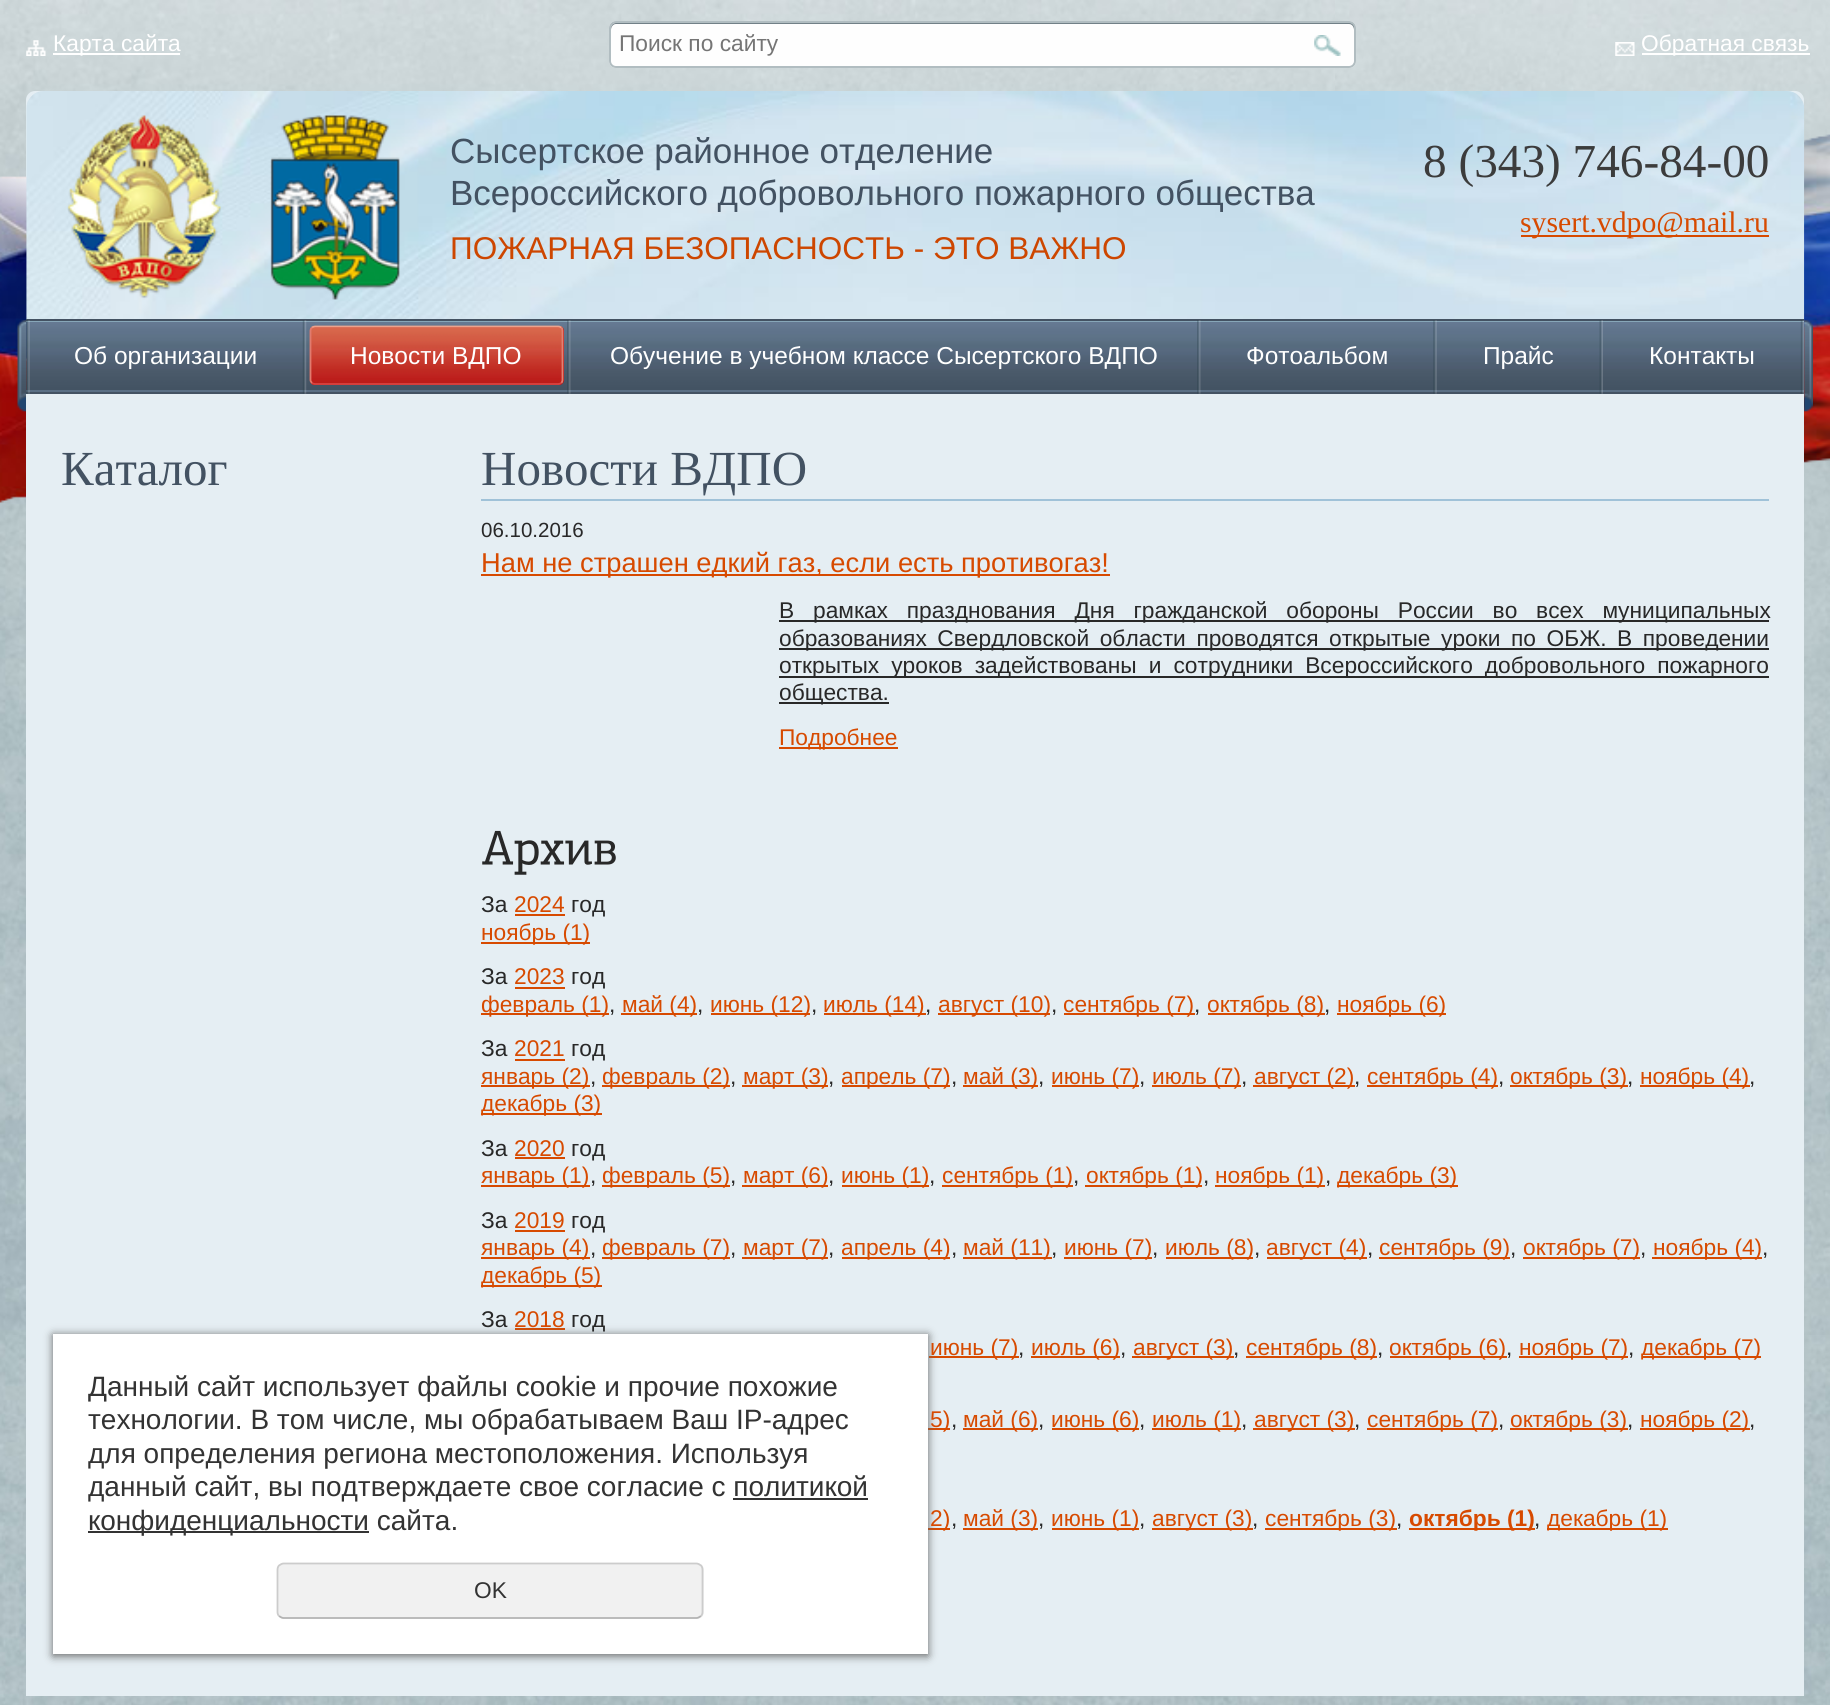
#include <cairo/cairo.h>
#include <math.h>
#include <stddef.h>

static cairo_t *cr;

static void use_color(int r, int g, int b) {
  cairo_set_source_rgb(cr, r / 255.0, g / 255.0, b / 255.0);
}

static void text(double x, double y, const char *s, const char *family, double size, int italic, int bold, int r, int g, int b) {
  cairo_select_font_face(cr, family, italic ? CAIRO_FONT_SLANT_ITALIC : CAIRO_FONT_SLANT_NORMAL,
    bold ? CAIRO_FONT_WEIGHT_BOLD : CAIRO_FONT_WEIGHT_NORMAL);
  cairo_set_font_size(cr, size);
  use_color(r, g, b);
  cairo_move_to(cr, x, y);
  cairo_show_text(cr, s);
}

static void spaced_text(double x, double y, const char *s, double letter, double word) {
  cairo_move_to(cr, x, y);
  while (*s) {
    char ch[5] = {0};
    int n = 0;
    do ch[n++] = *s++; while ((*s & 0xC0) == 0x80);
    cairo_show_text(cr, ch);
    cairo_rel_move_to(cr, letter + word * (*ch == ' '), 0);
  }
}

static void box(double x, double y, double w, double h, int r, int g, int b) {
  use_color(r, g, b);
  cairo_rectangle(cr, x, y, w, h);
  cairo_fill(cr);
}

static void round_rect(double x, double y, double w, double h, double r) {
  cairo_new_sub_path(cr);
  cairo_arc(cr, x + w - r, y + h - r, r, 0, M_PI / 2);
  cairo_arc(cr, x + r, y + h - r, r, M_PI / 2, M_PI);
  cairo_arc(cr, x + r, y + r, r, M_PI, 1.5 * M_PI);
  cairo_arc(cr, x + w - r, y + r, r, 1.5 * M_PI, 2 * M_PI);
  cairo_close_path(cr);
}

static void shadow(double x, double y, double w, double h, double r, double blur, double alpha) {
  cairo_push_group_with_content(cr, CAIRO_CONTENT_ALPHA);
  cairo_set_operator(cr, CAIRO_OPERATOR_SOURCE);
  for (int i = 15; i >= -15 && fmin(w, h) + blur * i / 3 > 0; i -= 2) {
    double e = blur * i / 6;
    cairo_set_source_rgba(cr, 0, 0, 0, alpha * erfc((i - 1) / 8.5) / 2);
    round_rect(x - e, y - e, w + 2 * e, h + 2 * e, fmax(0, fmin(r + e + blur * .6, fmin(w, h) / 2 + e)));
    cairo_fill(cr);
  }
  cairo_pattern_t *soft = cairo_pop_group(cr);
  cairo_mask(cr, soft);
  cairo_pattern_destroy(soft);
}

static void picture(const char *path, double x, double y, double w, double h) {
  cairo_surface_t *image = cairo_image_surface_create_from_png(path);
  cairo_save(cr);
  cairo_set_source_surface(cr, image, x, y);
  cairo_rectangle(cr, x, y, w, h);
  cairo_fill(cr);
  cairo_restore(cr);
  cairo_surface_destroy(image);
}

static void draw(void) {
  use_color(255, 255, 255);
  cairo_paint(cr);
  picture("img_01.png", 0, 0, 1830, 1705);
  picture("img_02.png", 26, 40, 20, 16);
  box(53, 53, 127, 2, 255, 255, 255);
  picture("img_03.png", 1615, 42, 20, 14);
  box(1642, 53, 168, 2, 255, 255, 255);
  use_color(254, 254, 254);
  round_rect(609, 21, 747, 47, 7);
  cairo_fill(cr);
  use_color(113, 128, 135);
  cairo_new_path(cr);
  cairo_move_to(cr, 616, 24);
  cairo_line_to(cr, 1349, 24);
  cairo_curve_to(cr, 1352, 24, 1354, 27, 1354, 30);
  cairo_line_to(cr, 1354, 63);
  cairo_line_to(cr, 1353, 66);
  cairo_curve_to(cr, 1354, 65, 1355, 63, 1355, 62);
  cairo_line_to(cr, 1355, 28);
  cairo_curve_to(cr, 1355, 25, 1353, 23, 1350, 23);
  cairo_line_to(cr, 616, 23);
  cairo_curve_to(cr, 613, 23, 611, 25, 611, 28);
  cairo_line_to(cr, 611, 30);
  cairo_curve_to(cr, 611, 27, 613, 24, 616, 24);
  cairo_close_path(cr);
  cairo_fill(cr);
  round_rect(610, 22, 745, 45, 6);
  use_color(177, 189, 193);
  cairo_stroke(cr);
  picture("img_04.png", 1314, 35, 27, 21);
  use_color(229, 238, 243);
  round_rect(26, 91, 1778, 1605, 9);
  cairo_fill(cr);
  picture("img_05.png", 0, 134, 1830, 369);
  picture("img_06.png", 26, 91, 1779, 231);
  picture("img_07.png", 67, 115, 333, 185);
  box(1521, 235, 248, 2, 215, 74, 0);
  picture("img_08.png", 26, 320, 1779, 71);
  box(26, 390, 1778, 2, 90, 111, 132);
  box(26, 321, 1778, 1, 135, 166, 184);
  box(26, 319, 1778, 2, 67, 82, 98);
  box(26, 392, 1778, 2, 67, 82, 98);
  picture("img_09.png", 17, 320, 10, 92);
  picture("img_10.png", 1800, 320, 5, 74);
  picture("img_11.png", 26, 320, 4, 74);
  picture("img_12.png", 302, 320, 5, 74);
  use_color(187, 6, 1);
  round_rect(310, 326, 254, 59, 5);
  cairo_fill(cr);
  picture("img_13.png", 309, 327, 255, 58);
  cairo_new_path(cr);
  cairo_move_to(cr, 312, 327.5);
  cairo_curve_to(cr, 312.5, 327, 314, 326.5, 315, 326.5);
  cairo_line_to(cr, 558, 326.5);
  cairo_curve_to(cr, 559.5, 326.5, 560.5, 327, 561.5, 327.5);
  use_color(235, 163, 141);
  cairo_set_line_width(cr, 1.8);
  cairo_stroke(cr);
  cairo_new_path(cr);
  cairo_move_to(cr, 561.5, 327.5);
  cairo_curve_to(cr, 562, 328.5, 562.5, 329.5, 562.5, 331);
  cairo_line_to(cr, 562.5, 380);
  cairo_curve_to(cr, 562.5, 381, 562, 382, 561.5, 383);
  use_color(226, 129, 114);
  cairo_stroke(cr);
  cairo_new_path(cr);
  cairo_move_to(cr, 561.5, 383);
  cairo_curve_to(cr, 560.5, 383.5, 559.5, 384, 558, 384);
  cairo_line_to(cr, 315, 384);
  cairo_curve_to(cr, 314, 384, 312.5, 383.5, 312, 383);
  use_color(217, 68, 66);
  cairo_stroke(cr);
  cairo_new_path(cr);
  cairo_move_to(cr, 312, 383);
  cairo_curve_to(cr, 311, 382, 310.5, 381, 310.5, 380);
  cairo_line_to(cr, 310.5, 331);
  cairo_curve_to(cr, 310.5, 329.5, 311, 328.5, 312, 327.5);
  use_color(225, 123, 110);
  cairo_stroke(cr);
  picture("img_14.png", 567, 320, 4, 74);
  picture("img_15.png", 1197, 320, 4, 74);
  picture("img_16.png", 1433, 320, 4, 74);
  picture("img_17.png", 1599, 320, 4, 74);
  picture("img_18.png", 1804, 320, 9, 92);
  box(26, 394, 1778, 1302, 229, 238, 243);
  box(481, 499, 1288, 2, 160, 194, 216);
  box(481, 574, 629, 2, 215, 74, 0);
  box(779, 620, 990, 2, 40, 40, 40);
  box(779, 648, 990, 2, 40, 40, 40);
  box(779, 676, 990, 2, 40, 40, 40);
  box(779, 702, 110, 2, 40, 40, 40);
  box(779, 747, 119, 2, 215, 74, 0);
  picture("img_19.png", 482, 830, 134, 45);
  box(515, 914, 50, 2, 215, 74, 0);
  box(481, 942, 109, 2, 215, 74, 0);
  box(515, 987, 50, 2, 215, 74, 0);
  box(481, 1013, 128, 2, 215, 74, 0);
  box(621, 1013, 76, 2, 215, 74, 0);
  box(711, 1013, 99, 2, 215, 74, 0);
  box(824, 1013, 102, 2, 215, 74, 0);
  box(938, 1013, 112, 2, 215, 74, 0);
  box(1064, 1013, 131, 2, 215, 74, 0);
  box(1208, 1013, 117, 2, 215, 74, 0);
  box(1337, 1013, 109, 2, 215, 74, 0);
  box(515, 1059, 50, 2, 215, 74, 0);
  box(481, 1085, 109, 2, 215, 74, 0);
  box(602, 1085, 128, 2, 215, 74, 0);
  box(742, 1085, 86, 2, 215, 74, 0);
  box(842, 1085, 108, 2, 215, 74, 0);
  box(963, 1085, 75, 2, 215, 74, 0);
  box(1052, 1085, 87, 2, 215, 74, 0);
  box(1152, 1085, 89, 2, 215, 74, 0);
  box(1253, 1085, 102, 2, 215, 74, 0);
  box(1367, 1085, 131, 2, 215, 74, 0);
  box(1510, 1085, 118, 2, 215, 74, 0);
  box(1640, 1085, 110, 2, 215, 74, 0);
  box(481, 1113, 121, 2, 215, 74, 0);
  box(515, 1157, 50, 2, 215, 74, 0);
  box(481, 1185, 109, 2, 215, 74, 0);
  box(602, 1185, 128, 2, 215, 74, 0);
  box(742, 1185, 86, 2, 215, 74, 0);
  box(842, 1185, 87, 2, 215, 74, 0);
  box(942, 1185, 131, 2, 215, 74, 0);
  box(1085, 1185, 117, 2, 215, 74, 0);
  box(1215, 1185, 110, 2, 215, 74, 0);
  box(1337, 1185, 121, 2, 215, 74, 0);
  box(515, 1230, 50, 2, 215, 74, 0);
  box(481, 1257, 109, 2, 215, 74, 0);
  box(602, 1257, 128, 2, 215, 74, 0);
  box(742, 1257, 86, 2, 215, 74, 0);
  box(842, 1257, 108, 2, 215, 74, 0);
  box(963, 1257, 89, 2, 215, 74, 0);
  box(1064, 1257, 88, 2, 215, 74, 0);
  box(1166, 1257, 87, 2, 215, 74, 0);
  box(1267, 1257, 100, 2, 215, 74, 0);
  box(1379, 1257, 131, 2, 215, 74, 0);
  box(1523, 1257, 117, 2, 215, 74, 0);
  box(1652, 1257, 110, 2, 215, 74, 0);
  box(481, 1285, 121, 2, 215, 74, 0);
  box(515, 1328, 50, 2, 215, 74, 0);
  box(929, 1356, 90, 2, 215, 74, 0);
  box(1031, 1356, 89, 2, 215, 74, 0);
  box(1132, 1356, 102, 2, 215, 74, 0);
  box(1246, 1356, 131, 2, 215, 74, 0);
  box(1390, 1356, 117, 2, 215, 74, 0);
  box(1519, 1356, 109, 2, 215, 74, 0);
  box(1642, 1356, 119, 2, 215, 74, 0);
  box(928, 1428, 22, 2, 215, 74, 0);
  box(963, 1428, 75, 2, 215, 74, 0);
  box(1052, 1428, 87, 2, 215, 74, 0);
  box(1152, 1428, 89, 2, 215, 74, 0);
  box(1253, 1428, 102, 2, 215, 74, 0);
  box(1367, 1428, 131, 2, 215, 74, 0);
  box(1510, 1428, 118, 2, 215, 74, 0);
  box(1640, 1428, 110, 2, 215, 74, 0);
  box(928, 1528, 22, 2, 215, 74, 0);
  box(963, 1528, 75, 2, 215, 74, 0);
  box(1052, 1528, 87, 2, 215, 74, 0);
  box(1152, 1528, 101, 2, 215, 74, 0);
  box(1265, 1528, 132, 2, 215, 74, 0);
  box(1409, 1528, 126, 2, 215, 74, 0);
  box(1547, 1528, 121, 2, 215, 74, 0);
  use_color(102, 102, 102);
  shadow(53, 1335, 875, 321, 0, 4.5, 1);
  box(53, 1334, 875, 320, 255, 255, 255);
  box(733, 1498, 135, 2, 51, 51, 51);
  box(88, 1531, 281, 2, 51, 51, 51);
  use_color(241, 241, 241);
  round_rect(277, 1563, 427, 56, 7);
  cairo_fill(cr);
  cairo_new_path(cr);
  cairo_move_to(cr, 701, 1616);
  cairo_curve_to(cr, 699.5, 1617, 698, 1618, 696.5, 1618);
  cairo_line_to(cr, 283.5, 1618);
  cairo_curve_to(cr, 282, 1618, 280.5, 1617, 279, 1616);
  use_color(179, 179, 179);
  cairo_stroke(cr);
  cairo_new_path(cr);
  cairo_move_to(cr, 279, 1616);
  cairo_curve_to(cr, 278, 1615, 277.5, 1613.5, 277.5, 1612);
  cairo_line_to(cr, 277.5, 1570);
  cairo_curve_to(cr, 277.5, 1568, 278, 1566.5, 279, 1565.5);
  cairo_curve_to(cr, 280.5, 1564.5, 282, 1563.5, 283.5, 1563.5);
  cairo_line_to(cr, 696.5, 1563.5);
  cairo_curve_to(cr, 698, 1563.5, 699.5, 1564.5, 701, 1565.5);
  cairo_curve_to(cr, 702, 1566.5, 702.5, 1568, 702.5, 1570);
  cairo_line_to(cr, 702.5, 1612);
  cairo_curve_to(cr, 702.5, 1613.5, 702, 1615, 701, 1616);
  use_color(204, 204, 204);
  cairo_stroke(cr);
  text(53, 51, "Карта сайта", "Liberation Sans", 22.75, 0, 0, 255, 255, 255);
  text(1641, 51, "Обратная связь", "Liberation Sans", 22.75, 0, 0, 255, 255, 255);
  text(619, 51, "Поиск по сайту", "Liberation Sans", 22.75, 0, 0, 117, 117, 117);
  text(450, 163, "Сысертское районное отделение", "Liberation Sans", 35, 0, 0, 67, 82, 98);
  text(450, 205, "Всероссийского добровольного пожарного общества", "Liberation Sans", 35, 0, 0, 67, 82, 98);
  text(450, 259, "ПОЖАРНАЯ БЕЗОПАСНОСТЬ - ЭТО ВАЖНО", "Liberation Sans", 31.5, 0, 0, 205, 70, 0);
  text(1423, 177, "8 (343) 746-84-00", "Liberation Serif", 47.25, 0, 0, 60, 60, 60);
  text(1520, 232, "sysert.vdpo@mail.ru", "Liberation Serif", 29.75, 0, 0, 215, 74, 0);
  text(74, 364, "Об организации", "Liberation Sans", 24.5, 0, 0, 255, 255, 255);
  text(350, 364, "Новости ВДПО", "Liberation Sans", 24.5, 0, 0, 255, 255, 255);
  text(610, 364, "Обучение в учебном классе Сысертского ВДПО", "Liberation Sans", 24.5, 0, 0, 255, 255, 255);
  text(1246, 364, "Фотоальбом", "Liberation Sans", 24.5, 0, 0, 255, 255, 255);
  text(1483, 364, "Прайс", "Liberation Sans", 24.5, 0, 0, 255, 255, 255);
  text(1649, 364, "Контакты", "Liberation Sans", 24.5, 0, 0, 255, 255, 255);
  text(61, 485, "Каталог", "Liberation Serif", 49, 0, 0, 67, 82, 98);
  text(481, 485, "Новости ВДПО", "Liberation Serif", 49, 0, 0, 67, 82, 98);
  text(481, 537, "06.10.2016", "Liberation Sans", 20.5, 0, 0, 40, 40, 40);
  text(481, 572, "Нам не страшен едкий газ, если есть противогаз!", "Liberation Sans", 27.3, 0, 0, 215, 74, 0);
  cairo_set_font_size(cr, 22.75);
  use_color(40, 40, 40);
  spaced_text(779, 618, "В рамках празднования Дня гражданской обороны России во всех муниципальных", 0, 12.5);
  spaced_text(779, 646, "образованиях Свердловской области проводятся открытые уроки по ОБЖ. В проведении", 0, 4.25);
  spaced_text(779, 673, "открытых уроков задействованы и сотрудники Всероссийского добровольного пожарного", 0, 5.75);
  text(779, 700, "общества.", "Liberation Sans", 22.75, 0, 0, 40, 40, 40);
  text(779, 745, "Подробнее", "Liberation Sans", 22.75, 0, 0, 215, 74, 0);
  text(481, 912, "За", "Liberation Sans", 22.75, 0, 0, 40, 40, 40);
  text(514, 912, "2024", "Liberation Sans", 22.75, 0, 0, 215, 74, 0);
  text(571, 912, "год", "Liberation Sans", 22.75, 0, 0, 40, 40, 40);
  text(481, 940, "ноябрь (1)", "Liberation Sans", 22.75, 0, 0, 215, 74, 0);
  text(481, 984, "За", "Liberation Sans", 22.75, 0, 0, 40, 40, 40);
  text(514, 984, "2023", "Liberation Sans", 22.75, 0, 0, 215, 74, 0);
  text(571, 984, "год", "Liberation Sans", 22.75, 0, 0, 40, 40, 40);
  text(481, 1012, "февраль (1)", "Liberation Sans", 22.75, 0, 0, 215, 74, 0);
  text(609, 1012, ",", "Liberation Sans", 22.75, 0, 0, 40, 40, 40);
  text(622, 1012, "май (4)", "Liberation Sans", 22.75, 0, 0, 215, 74, 0);
  text(697, 1012, ",", "Liberation Sans", 22.75, 0, 0, 40, 40, 40);
  text(710, 1012, "июнь (12)", "Liberation Sans", 22.75, 0, 0, 215, 74, 0);
  text(811, 1012, ",", "Liberation Sans", 22.75, 0, 0, 40, 40, 40);
  text(823, 1012, "июль (14)", "Liberation Sans", 22.75, 0, 0, 215, 74, 0);
  text(925, 1012, ",", "Liberation Sans", 22.75, 0, 0, 40, 40, 40);
  text(938, 1012, "август (10)", "Liberation Sans", 22.75, 0, 0, 215, 74, 0);
  text(1051, 1012, ",", "Liberation Sans", 22.75, 0, 0, 40, 40, 40);
  text(1063, 1012, "сентябрь (7)", "Liberation Sans", 22.75, 0, 0, 215, 74, 0);
  text(1194, 1012, ",", "Liberation Sans", 22.75, 0, 0, 40, 40, 40);
  text(1207, 1012, "октябрь (8)", "Liberation Sans", 22.75, 0, 0, 215, 74, 0);
  text(1324, 1012, ",", "Liberation Sans", 22.75, 0, 0, 40, 40, 40);
  text(1337, 1012, "ноябрь (6)", "Liberation Sans", 22.75, 0, 0, 215, 74, 0);
  text(481, 1056, "За", "Liberation Sans", 22.75, 0, 0, 40, 40, 40);
  text(514, 1056, "2021", "Liberation Sans", 22.75, 0, 0, 215, 74, 0);
  text(571, 1056, "год", "Liberation Sans", 22.75, 0, 0, 40, 40, 40);
  text(481, 1084, "январь (2)", "Liberation Sans", 22.75, 0, 0, 215, 74, 0);
  text(590, 1084, ",", "Liberation Sans", 22.75, 0, 0, 40, 40, 40);
  text(602, 1084, "февраль (2)", "Liberation Sans", 22.75, 0, 0, 215, 74, 0);
  text(730, 1084, ",", "Liberation Sans", 22.75, 0, 0, 40, 40, 40);
  text(743, 1084, "март (3)", "Liberation Sans", 22.75, 0, 0, 215, 74, 0);
  text(828, 1084, ",", "Liberation Sans", 22.75, 0, 0, 40, 40, 40);
  text(841, 1084, "апрель (7)", "Liberation Sans", 22.75, 0, 0, 215, 74, 0);
  text(951, 1084, ",", "Liberation Sans", 22.75, 0, 0, 40, 40, 40);
  text(963, 1084, "май (3)", "Liberation Sans", 22.75, 0, 0, 215, 74, 0);
  text(1038, 1084, ",", "Liberation Sans", 22.75, 0, 0, 40, 40, 40);
  text(1051, 1084, "июнь (7)", "Liberation Sans", 22.75, 0, 0, 215, 74, 0);
  text(1139, 1084, ",", "Liberation Sans", 22.75, 0, 0, 40, 40, 40);
  text(1152, 1084, "июль (7)", "Liberation Sans", 22.75, 0, 0, 215, 74, 0);
  text(1241, 1084, ",", "Liberation Sans", 22.75, 0, 0, 40, 40, 40);
  text(1254, 1084, "август (2)", "Liberation Sans", 22.75, 0, 0, 215, 74, 0);
  text(1354, 1084, ",", "Liberation Sans", 22.75, 0, 0, 40, 40, 40);
  text(1367, 1084, "сентябрь (4)", "Liberation Sans", 22.75, 0, 0, 215, 74, 0);
  text(1498, 1084, ",", "Liberation Sans", 22.75, 0, 0, 40, 40, 40);
  text(1510, 1084, "октябрь (3)", "Liberation Sans", 22.75, 0, 0, 215, 74, 0);
  text(1627, 1084, ",", "Liberation Sans", 22.75, 0, 0, 40, 40, 40);
  text(1640, 1084, "ноябрь (4)", "Liberation Sans", 22.75, 0, 0, 215, 74, 0);
  text(1749, 1084, ",", "Liberation Sans", 22.75, 0, 0, 40, 40, 40);
  text(481, 1111, "декабрь (3)", "Liberation Sans", 22.75, 0, 0, 215, 74, 0);
  text(481, 1156, "За", "Liberation Sans", 22.75, 0, 0, 40, 40, 40);
  text(514, 1156, "2020", "Liberation Sans", 22.75, 0, 0, 215, 74, 0);
  text(571, 1156, "год", "Liberation Sans", 22.75, 0, 0, 40, 40, 40);
  text(481, 1183, "январь (1)", "Liberation Sans", 22.75, 0, 0, 215, 74, 0);
  text(590, 1183, ",", "Liberation Sans", 22.75, 0, 0, 40, 40, 40);
  text(602, 1183, "февраль (5)", "Liberation Sans", 22.75, 0, 0, 215, 74, 0);
  text(730, 1183, ",", "Liberation Sans", 22.75, 0, 0, 40, 40, 40);
  text(743, 1183, "март (6)", "Liberation Sans", 22.75, 0, 0, 215, 74, 0);
  text(828, 1183, ",", "Liberation Sans", 22.75, 0, 0, 40, 40, 40);
  text(841, 1183, "июнь (1)", "Liberation Sans", 22.75, 0, 0, 215, 74, 0);
  text(929, 1183, ",", "Liberation Sans", 22.75, 0, 0, 40, 40, 40);
  text(942, 1183, "сентябрь (1)", "Liberation Sans", 22.75, 0, 0, 215, 74, 0);
  text(1073, 1183, ",", "Liberation Sans", 22.75, 0, 0, 40, 40, 40);
  text(1086, 1183, "октябрь (1)", "Liberation Sans", 22.75, 0, 0, 215, 74, 0);
  text(1203, 1183, ",", "Liberation Sans", 22.75, 0, 0, 40, 40, 40);
  text(1215, 1183, "ноябрь (1)", "Liberation Sans", 22.75, 0, 0, 215, 74, 0);
  text(1325, 1183, ",", "Liberation Sans", 22.75, 0, 0, 40, 40, 40);
  text(1337, 1183, "декабрь (3)", "Liberation Sans", 22.75, 0, 0, 215, 74, 0);
  text(481, 1228, "За", "Liberation Sans", 22.75, 0, 0, 40, 40, 40);
  text(514, 1228, "2019", "Liberation Sans", 22.75, 0, 0, 215, 74, 0);
  text(571, 1228, "год", "Liberation Sans", 22.75, 0, 0, 40, 40, 40);
  text(481, 1255, "январь (4)", "Liberation Sans", 22.75, 0, 0, 215, 74, 0);
  text(590, 1255, ",", "Liberation Sans", 22.75, 0, 0, 40, 40, 40);
  text(602, 1255, "февраль (7)", "Liberation Sans", 22.75, 0, 0, 215, 74, 0);
  text(730, 1255, ",", "Liberation Sans", 22.75, 0, 0, 40, 40, 40);
  text(743, 1255, "март (7)", "Liberation Sans", 22.75, 0, 0, 215, 74, 0);
  text(828, 1255, ",", "Liberation Sans", 22.75, 0, 0, 40, 40, 40);
  text(841, 1255, "апрель (4)", "Liberation Sans", 22.75, 0, 0, 215, 74, 0);
  text(951, 1255, ",", "Liberation Sans", 22.75, 0, 0, 40, 40, 40);
  text(963, 1255, "май (11)", "Liberation Sans", 22.75, 0, 0, 215, 74, 0);
  text(1051, 1255, ",", "Liberation Sans", 22.75, 0, 0, 40, 40, 40);
  text(1064, 1255, "июнь (7)", "Liberation Sans", 22.75, 0, 0, 215, 74, 0);
  text(1152, 1255, ",", "Liberation Sans", 22.75, 0, 0, 40, 40, 40);
  text(1165, 1255, "июль (8)", "Liberation Sans", 22.75, 0, 0, 215, 74, 0);
  text(1254, 1255, ",", "Liberation Sans", 22.75, 0, 0, 40, 40, 40);
  text(1266, 1255, "август (4)", "Liberation Sans", 22.75, 0, 0, 215, 74, 0);
  text(1367, 1255, ",", "Liberation Sans", 22.75, 0, 0, 40, 40, 40);
  text(1379, 1255, "сентябрь (9)", "Liberation Sans", 22.75, 0, 0, 215, 74, 0);
  text(1510, 1255, ",", "Liberation Sans", 22.75, 0, 0, 40, 40, 40);
  text(1523, 1255, "октябрь (7)", "Liberation Sans", 22.75, 0, 0, 215, 74, 0);
  text(1640, 1255, ",", "Liberation Sans", 22.75, 0, 0, 40, 40, 40);
  text(1653, 1255, "ноябрь (4)", "Liberation Sans", 22.75, 0, 0, 215, 74, 0);
  text(1762, 1255, ",", "Liberation Sans", 22.75, 0, 0, 40, 40, 40);
  text(481, 1283, "декабрь (5)", "Liberation Sans", 22.75, 0, 0, 215, 74, 0);
  text(481, 1327, "За", "Liberation Sans", 22.75, 0, 0, 40, 40, 40);
  text(514, 1327, "2018", "Liberation Sans", 22.75, 0, 0, 215, 74, 0);
  text(571, 1327, "год", "Liberation Sans", 22.75, 0, 0, 40, 40, 40);
  text(930, 1355, "июнь (7)", "Liberation Sans", 22.75, 0, 0, 215, 74, 0);
  text(1018, 1355, ",", "Liberation Sans", 22.75, 0, 0, 40, 40, 40);
  text(1031, 1355, "июль (6)", "Liberation Sans", 22.75, 0, 0, 215, 74, 0);
  text(1120, 1355, ",", "Liberation Sans", 22.75, 0, 0, 40, 40, 40);
  text(1133, 1355, "август (3)", "Liberation Sans", 22.75, 0, 0, 215, 74, 0);
  text(1233, 1355, ",", "Liberation Sans", 22.75, 0, 0, 40, 40, 40);
  text(1246, 1355, "сентябрь (8)", "Liberation Sans", 22.75, 0, 0, 215, 74, 0);
  text(1377, 1355, ",", "Liberation Sans", 22.75, 0, 0, 40, 40, 40);
  text(1389, 1355, "октябрь (6)", "Liberation Sans", 22.75, 0, 0, 215, 74, 0);
  text(1506, 1355, ",", "Liberation Sans", 22.75, 0, 0, 40, 40, 40);
  text(1519, 1355, "ноябрь (7)", "Liberation Sans", 22.75, 0, 0, 215, 74, 0);
  text(1628, 1355, ",", "Liberation Sans", 22.75, 0, 0, 40, 40, 40);
  text(1641, 1355, "декабрь (7)", "Liberation Sans", 22.75, 0, 0, 215, 74, 0);
  text(930, 1427, "5)", "Liberation Sans", 22.75, 0, 0, 215, 74, 0);
  text(951, 1427, ",", "Liberation Sans", 22.75, 0, 0, 40, 40, 40);
  text(963, 1427, "май (6)", "Liberation Sans", 22.75, 0, 0, 215, 74, 0);
  text(1038, 1427, ",", "Liberation Sans", 22.75, 0, 0, 40, 40, 40);
  text(1051, 1427, "июнь (6)", "Liberation Sans", 22.75, 0, 0, 215, 74, 0);
  text(1139, 1427, ",", "Liberation Sans", 22.75, 0, 0, 40, 40, 40);
  text(1152, 1427, "июль (1)", "Liberation Sans", 22.75, 0, 0, 215, 74, 0);
  text(1241, 1427, ",", "Liberation Sans", 22.75, 0, 0, 40, 40, 40);
  text(1254, 1427, "август (3)", "Liberation Sans", 22.75, 0, 0, 215, 74, 0);
  text(1354, 1427, ",", "Liberation Sans", 22.75, 0, 0, 40, 40, 40);
  text(1367, 1427, "сентябрь (7)", "Liberation Sans", 22.75, 0, 0, 215, 74, 0);
  text(1498, 1427, ",", "Liberation Sans", 22.75, 0, 0, 40, 40, 40);
  text(1510, 1427, "октябрь (3)", "Liberation Sans", 22.75, 0, 0, 215, 74, 0);
  text(1627, 1427, ",", "Liberation Sans", 22.75, 0, 0, 40, 40, 40);
  text(1640, 1427, "ноябрь (2)", "Liberation Sans", 22.75, 0, 0, 215, 74, 0);
  text(1749, 1427, ",", "Liberation Sans", 22.75, 0, 0, 40, 40, 40);
  text(930, 1526, "2)", "Liberation Sans", 22.75, 0, 0, 215, 74, 0);
  text(951, 1526, ",", "Liberation Sans", 22.75, 0, 0, 40, 40, 40);
  text(963, 1526, "май (3)", "Liberation Sans", 22.75, 0, 0, 215, 74, 0);
  text(1038, 1526, ",", "Liberation Sans", 22.75, 0, 0, 40, 40, 40);
  text(1051, 1526, "июнь (1)", "Liberation Sans", 22.75, 0, 0, 215, 74, 0);
  text(1139, 1526, ",", "Liberation Sans", 22.75, 0, 0, 40, 40, 40);
  text(1152, 1526, "август (3)", "Liberation Sans", 22.75, 0, 0, 215, 74, 0);
  text(1252, 1526, ",", "Liberation Sans", 22.75, 0, 0, 40, 40, 40);
  text(1265, 1526, "сентябрь (3)", "Liberation Sans", 22.75, 0, 0, 215, 74, 0);
  text(1396, 1526, ",", "Liberation Sans", 22.75, 0, 0, 40, 40, 40);
  text(1409, 1526, "октябрь (1)", "Liberation Sans", 22.75, 0, 1, 215, 74, 0);
  text(1534, 1526, ",", "Liberation Sans", 22.75, 0, 0, 40, 40, 40);
  text(1547, 1526, "декабрь (1)", "Liberation Sans", 22.75, 0, 0, 215, 74, 0);
  text(88, 1396, "Данный сайт использует файлы cookie и прочие похожие", "Liberation Sans", 28, 0, 0, 51, 51, 51);
  text(88, 1429, "технологии. В том числе, мы обрабатываем Ваш IP-адрес", "Liberation Sans", 28, 0, 0, 51, 51, 51);
  text(88, 1463, "для определения региона местоположения. Используя", "Liberation Sans", 28, 0, 0, 51, 51, 51);
  text(88, 1496, "данный сайт, вы подтверждаете свое согласие с политикой", "Liberation Sans", 28, 0, 0, 51, 51, 51);
  text(88, 1530, "конфиденциальности сайта.", "Liberation Sans", 28, 0, 0, 51, 51, 51);
  text(474, 1598, "OK", "Liberation Sans", 22.75, 0, 0, 51, 51, 51);
}

int main(void) {
  cairo_surface_t *surface = cairo_image_surface_create(CAIRO_FORMAT_RGB24, 1830, 1705);
  cr = cairo_create(surface);
  cairo_font_options_t *options = cairo_font_options_create();
  cairo_font_options_set_hint_metrics(options, CAIRO_HINT_METRICS_OFF);
  cairo_font_options_set_hint_style(options, CAIRO_HINT_STYLE_NONE);
  cairo_set_font_options(cr, options);
  cairo_set_miter_limit(cr, 4);
  draw();
  cairo_surface_write_to_png(surface, "out.png");
  cairo_font_options_destroy(options);
  cairo_destroy(cr);
  cairo_surface_destroy(surface);
  return 0;
}
